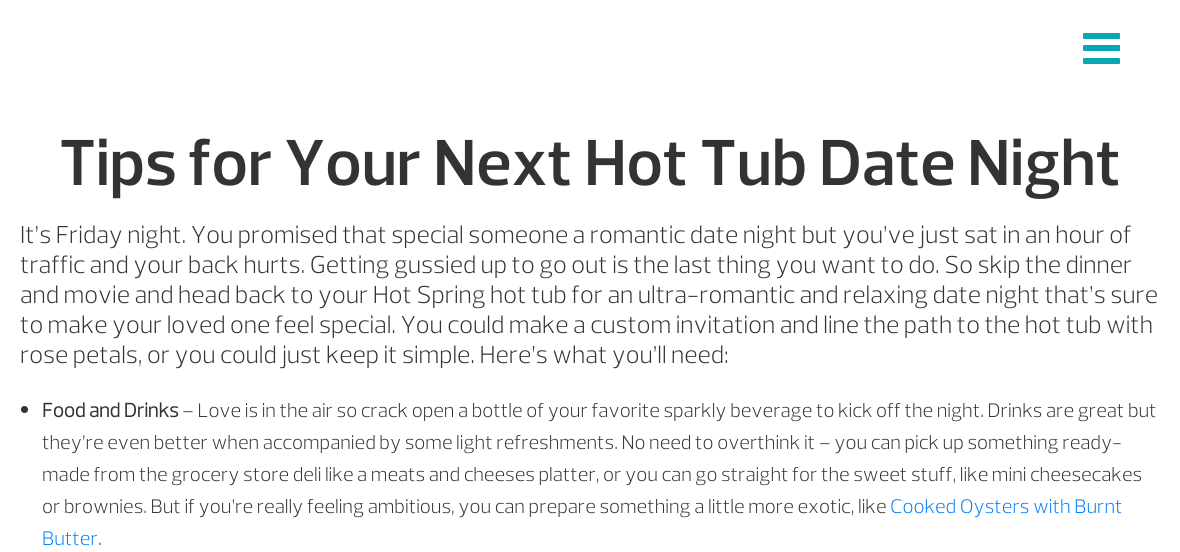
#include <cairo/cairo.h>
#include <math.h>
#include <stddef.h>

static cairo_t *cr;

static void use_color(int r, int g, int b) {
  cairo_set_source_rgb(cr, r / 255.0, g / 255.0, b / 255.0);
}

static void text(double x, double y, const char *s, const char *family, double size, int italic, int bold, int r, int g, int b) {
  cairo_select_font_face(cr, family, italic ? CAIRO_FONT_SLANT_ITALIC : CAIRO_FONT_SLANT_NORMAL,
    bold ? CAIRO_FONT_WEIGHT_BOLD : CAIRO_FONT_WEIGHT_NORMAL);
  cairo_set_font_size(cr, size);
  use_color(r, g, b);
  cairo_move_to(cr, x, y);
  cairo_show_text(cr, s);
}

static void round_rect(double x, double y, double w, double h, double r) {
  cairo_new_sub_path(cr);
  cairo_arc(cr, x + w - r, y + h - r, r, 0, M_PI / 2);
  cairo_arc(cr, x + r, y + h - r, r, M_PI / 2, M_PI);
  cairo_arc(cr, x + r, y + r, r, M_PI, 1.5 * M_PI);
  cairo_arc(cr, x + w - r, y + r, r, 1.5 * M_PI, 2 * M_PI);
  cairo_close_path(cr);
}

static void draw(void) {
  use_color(255, 255, 255);
  cairo_paint(cr);
  use_color(9, 166, 181);
  round_rect(1083, 45, 37, 6, 1);
  cairo_fill(cr);
  round_rect(1083, 33, 37, 6, 1);
  cairo_fill(cr);
  round_rect(1083, 58, 37, 6, 1);
  cairo_fill(cr);
  use_color(51, 51, 51);
  cairo_arc(cr, 24.5, 409.5, 3.5, 0, 2 * M_PI);
  cairo_fill(cr);
  text(59, 185, "Tips for Your Next Hot Tub Date Night", "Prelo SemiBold", 66.25, 0, 0, 51, 51, 51);
  text(20, 243, "It’s Friday night. You promised that special someone a romantic date night but you’ve just sat in an hour of", "Prelo Light", 25, 0, 0, 51, 51, 51);
  text(20, 273, "traffic and your back hurts. Getting gussied up to go out is the last thing you want to do. So skip the dinner", "Prelo Light", 25, 0, 0, 51, 51, 51);
  text(20, 303, "and movie and head back to your Hot Spring hot tub for an ultra-romantic and relaxing date night that’s sure", "Prelo Light", 25, 0, 0, 51, 51, 51);
  text(20, 333, "to make your loved one feel special. You could make a custom invitation and line the path to the hot tub with", "Prelo Light", 25, 0, 0, 51, 51, 51);
  text(20, 363, "rose petals, or you could just keep it simple. Here’s what you’ll need:", "Prelo Light", 25, 0, 0, 51, 51, 51);
  text(42, 417, "Food and Drinks", "Prelo", 20, 0, 1, 51, 51, 51);
  text(182, 417, "– Love is in the air so crack open a bottle of your favorite sparkly beverage to kick off the night. Drinks are great but", "Prelo Light", 20, 0, 0, 51, 51, 51);
  text(42, 449, "they’re even better when accompanied by some light refreshments. No need to overthink it – you can pick up something ready-", "Prelo Light", 20, 0, 0, 51, 51, 51);
  text(42, 481, "made from the grocery store deli like a meats and cheeses platter, or you can go straight for the sweet stuff, like mini cheesecakes", "Prelo Light", 20, 0, 0, 51, 51, 51);
  text(42, 513, "or brownies. But if you’re really feeling ambitious, you can prepare something a little more exotic, like", "Prelo Light", 20, 0, 0, 51, 51, 51);
  text(890, 513, "Cooked Oysters with Burnt", "Prelo Light", 20, 0, 0, 0, 123, 247);
  text(42, 545, "Butter", "Prelo Light", 20, 0, 0, 0, 123, 247);
  text(98, 545, ".", "Prelo Light", 20, 0, 0, 51, 51, 51);
}

int main(void) {
  cairo_surface_t *surface = cairo_image_surface_create(CAIRO_FORMAT_RGB24, 1180, 552);
  cr = cairo_create(surface);
  cairo_font_options_t *options = cairo_font_options_create();
  cairo_font_options_set_hint_metrics(options, CAIRO_HINT_METRICS_OFF);
  cairo_font_options_set_hint_style(options, CAIRO_HINT_STYLE_NONE);
  cairo_set_font_options(cr, options);
  cairo_set_miter_limit(cr, 4);
  draw();
  cairo_surface_write_to_png(surface, "out.png");
  cairo_font_options_destroy(options);
  cairo_destroy(cr);
  cairo_surface_destroy(surface);
  return 0;
}
